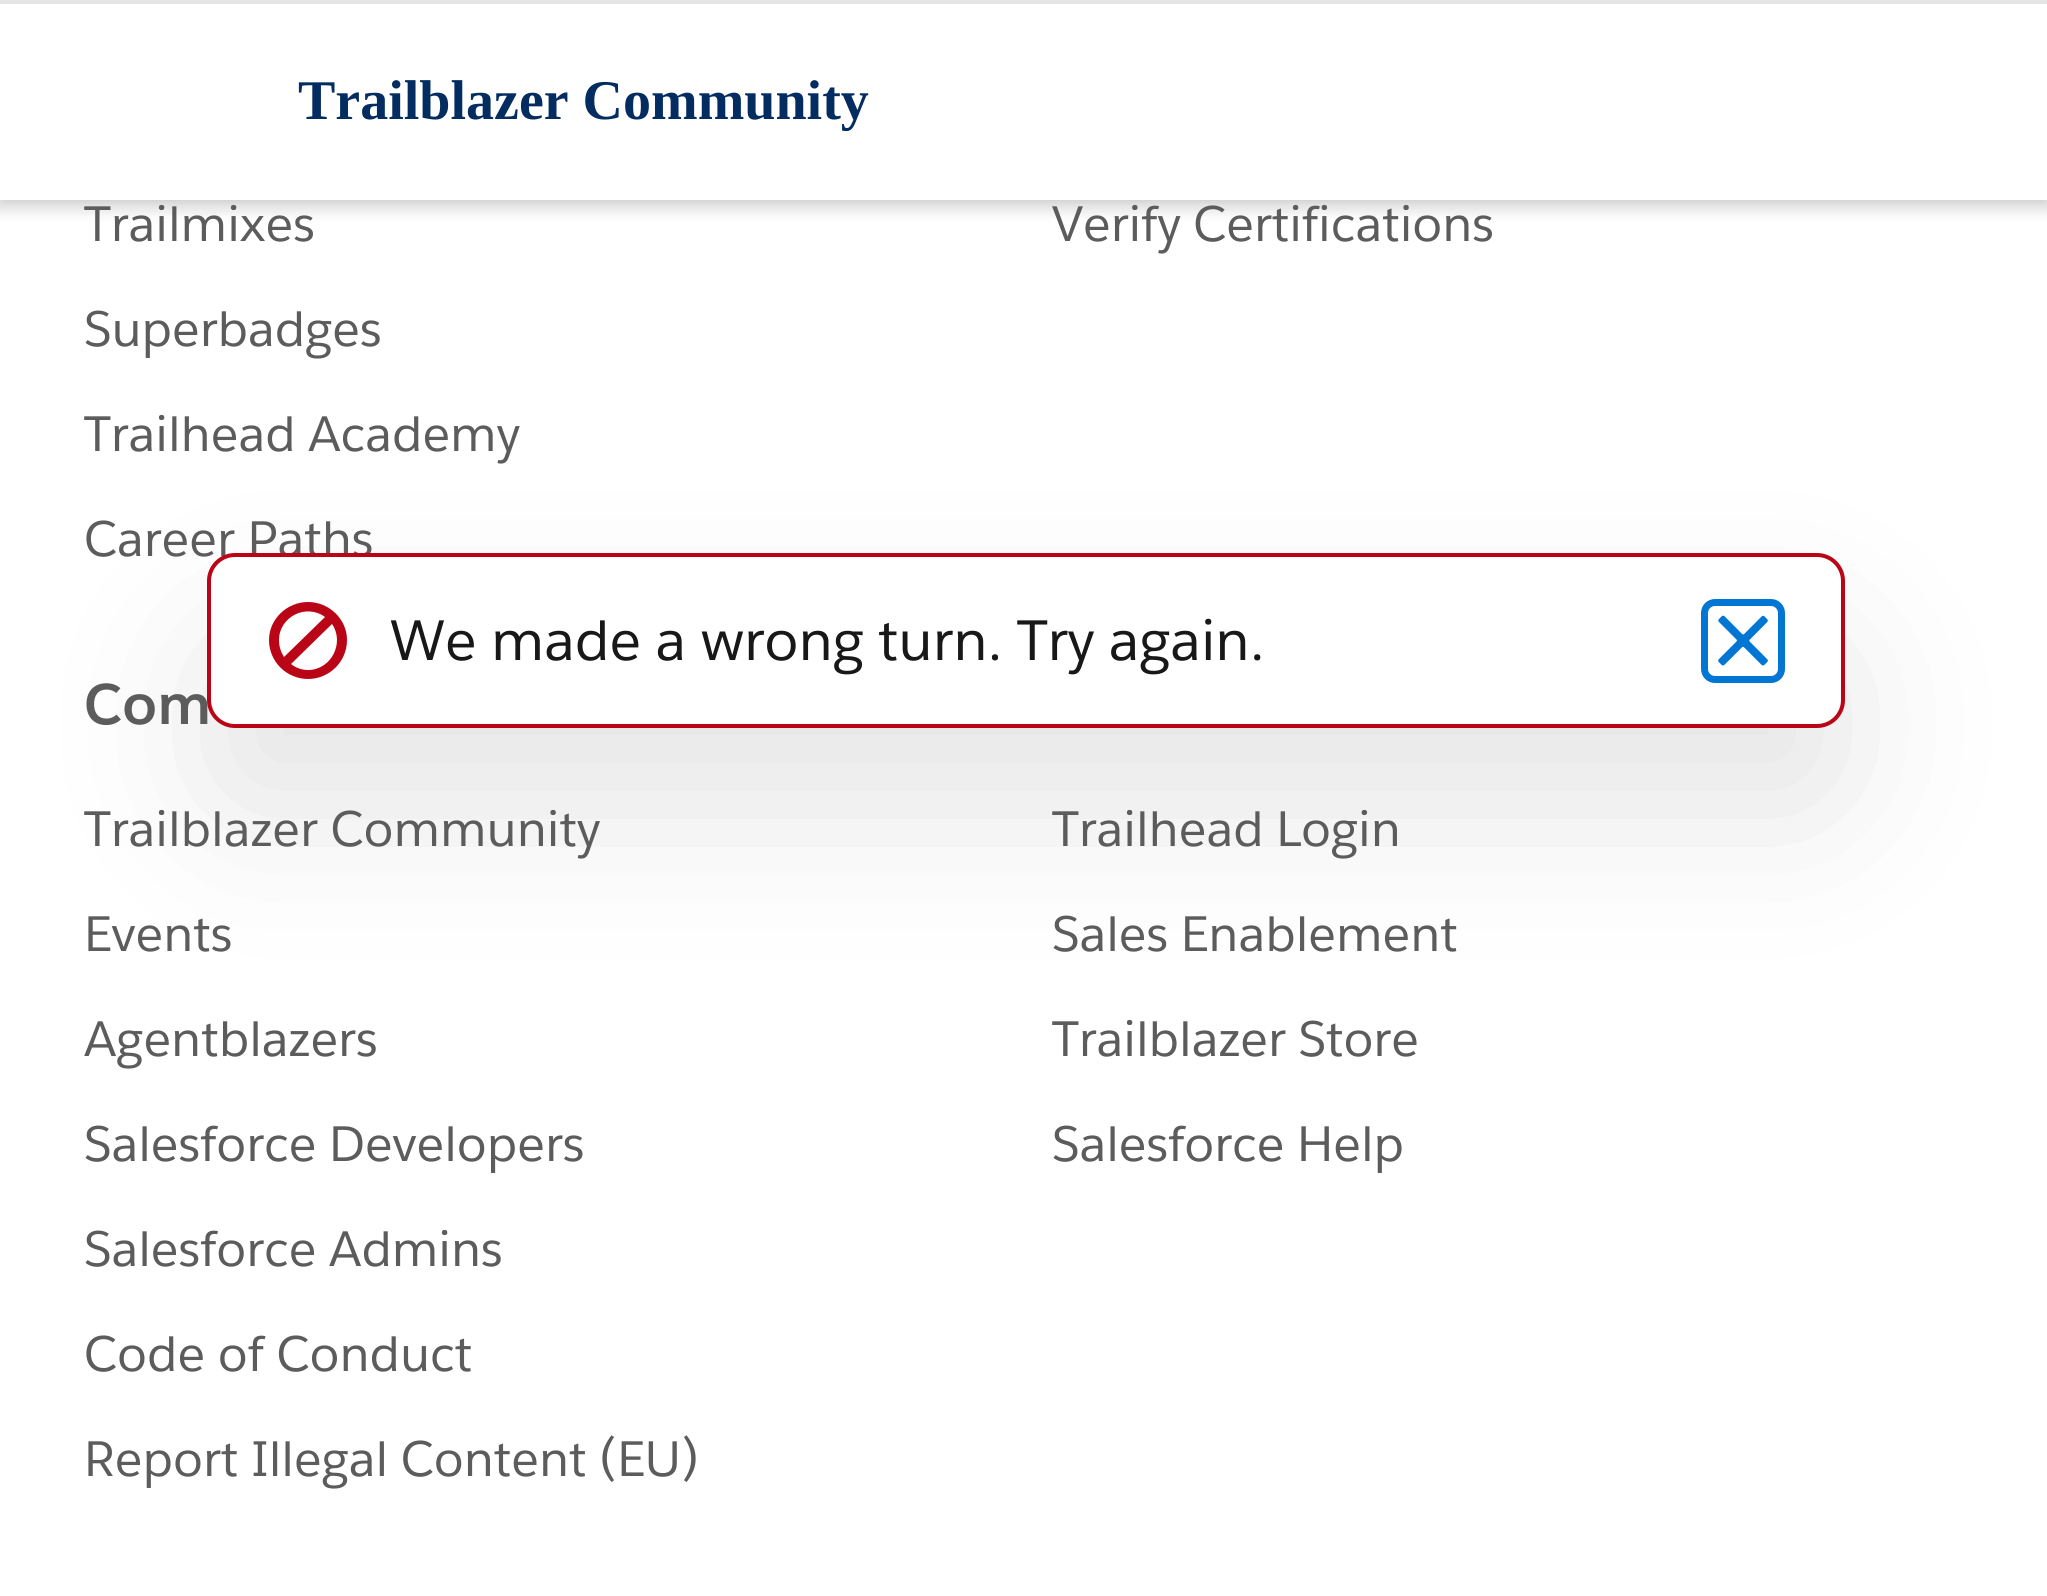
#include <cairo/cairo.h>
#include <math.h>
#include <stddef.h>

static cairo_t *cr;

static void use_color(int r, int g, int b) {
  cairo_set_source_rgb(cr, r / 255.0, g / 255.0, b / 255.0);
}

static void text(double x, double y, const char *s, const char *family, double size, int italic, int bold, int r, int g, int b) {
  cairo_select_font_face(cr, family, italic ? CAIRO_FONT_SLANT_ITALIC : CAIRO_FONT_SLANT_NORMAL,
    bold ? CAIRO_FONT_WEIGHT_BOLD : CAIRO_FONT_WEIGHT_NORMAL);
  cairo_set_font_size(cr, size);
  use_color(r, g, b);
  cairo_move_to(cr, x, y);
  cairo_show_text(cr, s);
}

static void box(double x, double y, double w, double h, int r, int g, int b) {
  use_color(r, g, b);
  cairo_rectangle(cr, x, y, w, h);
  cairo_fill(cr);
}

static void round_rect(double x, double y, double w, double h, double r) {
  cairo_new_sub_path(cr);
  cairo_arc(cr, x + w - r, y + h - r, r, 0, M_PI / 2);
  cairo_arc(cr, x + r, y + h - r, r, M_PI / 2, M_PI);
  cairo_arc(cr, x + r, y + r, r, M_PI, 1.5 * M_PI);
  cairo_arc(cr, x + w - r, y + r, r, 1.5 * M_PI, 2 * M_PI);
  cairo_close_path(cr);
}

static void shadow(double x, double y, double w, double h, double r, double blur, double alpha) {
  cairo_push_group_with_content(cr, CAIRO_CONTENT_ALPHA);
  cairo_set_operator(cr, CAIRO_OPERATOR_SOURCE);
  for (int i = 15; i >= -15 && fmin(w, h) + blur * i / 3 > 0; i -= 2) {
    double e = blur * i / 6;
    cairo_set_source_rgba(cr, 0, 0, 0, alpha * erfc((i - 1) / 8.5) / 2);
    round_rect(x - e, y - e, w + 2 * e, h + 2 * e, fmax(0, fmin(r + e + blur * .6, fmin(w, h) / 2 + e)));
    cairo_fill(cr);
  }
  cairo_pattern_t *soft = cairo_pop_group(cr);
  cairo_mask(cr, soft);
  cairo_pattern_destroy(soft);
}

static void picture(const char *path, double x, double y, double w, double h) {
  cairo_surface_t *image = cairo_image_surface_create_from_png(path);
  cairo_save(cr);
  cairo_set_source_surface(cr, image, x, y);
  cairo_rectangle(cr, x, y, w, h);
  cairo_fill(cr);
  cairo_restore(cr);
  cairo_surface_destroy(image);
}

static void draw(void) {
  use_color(255, 255, 255);
  cairo_paint(cr);
  use_color(24, 24, 24);
  shadow(-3, 4, 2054, 206, 0, 7, 0.16);
  shadow(0, 0, 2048, 200, 0, 3.5, 0.08);
  box(0, 4, 2047, 196, 255, 255, 255);
  box(0, 0, 2047, 4, 229, 229, 229);
  use_color(24, 24, 24);
  shadow(214, 644, 1624, 161, 21, 84, 0.12);
  text(298, 119, "Trailblazer Community", "Liberation Serif", 56, 0, 1, 3, 45, 96);
  text(84, 241, "Trailmixes", "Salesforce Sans", 49, 0, 0, 92, 92, 92);
  text(84, 346, "Superbadges", "Salesforce Sans", 49, 0, 0, 92, 92, 92);
  text(84, 451, "Trailhead Academy", "Salesforce Sans", 49, 0, 0, 92, 92, 92);
  text(84, 556, "Career Paths", "Salesforce Sans", 49, 0, 0, 92, 92, 92);
  text(1052, 241, "Verify Certifications", "Salesforce Sans", 49, 0, 0, 92, 92, 92);
  text(84, 724, "Com", "Salesforce Sans", 56, 0, 1, 92, 92, 92);
  text(84, 846, "Trailblazer Community", "Salesforce Sans", 49, 0, 0, 92, 92, 92);
  text(84, 951, "Events", "Salesforce Sans", 49, 0, 0, 92, 92, 92);
  text(84, 1056, "Agentblazers", "Salesforce Sans", 49, 0, 0, 92, 92, 92);
  text(84, 1161, "Salesforce Developers", "Salesforce Sans", 49, 0, 0, 92, 92, 92);
  text(84, 1266, "Salesforce Admins", "Salesforce Sans", 49, 0, 0, 92, 92, 92);
  text(84, 1371, "Code of Conduct", "Salesforce Sans", 49, 0, 0, 92, 92, 92);
  text(84, 1476, "Report Illegal Content (EU)", "Salesforce Sans", 49, 0, 0, 92, 92, 92);
  text(1052, 846, "Trailhead Login", "Salesforce Sans", 49, 0, 0, 92, 92, 92);
  text(1052, 951, "Sales Enablement", "Salesforce Sans", 49, 0, 0, 92, 92, 92);
  text(1052, 1056, "Trailblazer Store", "Salesforce Sans", 49, 0, 0, 92, 92, 92);
  text(1052, 1161, "Salesforce Help", "Salesforce Sans", 49, 0, 0, 92, 92, 92);
  use_color(255, 255, 255);
  round_rect(209, 555, 1634, 171, 26);
  cairo_fill_preserve(cr);
  use_color(186, 5, 23);
  cairo_set_line_width(cr, 4);
  cairo_stroke(cr);
  cairo_new_path(cr);
  cairo_move_to(cr, 308, 602);
  cairo_curve_to(cr, 287, 602, 269, 619, 269, 640);
  cairo_curve_to(cr, 269, 662, 287, 679, 308, 679);
  cairo_curve_to(cr, 329, 679, 347, 662, 347, 640);
  cairo_curve_to(cr, 347, 619, 329, 602, 308, 602);
  cairo_close_path(cr);
  cairo_move_to(cr, 279, 640);
  cairo_curve_to(cr, 279, 617, 306, 603, 325, 617);
  cairo_line_to(cr, 284, 657);
  cairo_curve_to(cr, 281, 652, 279, 647, 279, 640);
  cairo_close_path(cr);
  cairo_move_to(cr, 308, 670);
  cairo_curve_to(cr, 302, 670, 296, 668, 291, 664);
  cairo_line_to(cr, 332, 624);
  cairo_curve_to(cr, 345, 643, 331, 670, 308, 670);
  cairo_close_path(cr);
  cairo_fill(cr);
  text(390, 660, "We made a wrong turn. Try again.", "Salesforce Sans", 56, 0, 0, 24, 24, 24);
  round_rect(1704.5, 602.5, 77, 77, 10.5);
  use_color(1, 118, 211);
  cairo_set_line_width(cr, 7);
  cairo_stroke(cr);
  picture("img_01.png", 1718, 615, 50, 51);
}

int main(void) {
  cairo_surface_t *surface = cairo_image_surface_create(CAIRO_FORMAT_RGB24, 2047, 1596);
  cr = cairo_create(surface);
  cairo_font_options_t *options = cairo_font_options_create();
  cairo_font_options_set_hint_metrics(options, CAIRO_HINT_METRICS_OFF);
  cairo_font_options_set_hint_style(options, CAIRO_HINT_STYLE_NONE);
  cairo_set_font_options(cr, options);
  cairo_set_miter_limit(cr, 4);
  draw();
  cairo_surface_write_to_png(surface, "out.png");
  cairo_font_options_destroy(options);
  cairo_destroy(cr);
  cairo_surface_destroy(surface);
  return 0;
}
